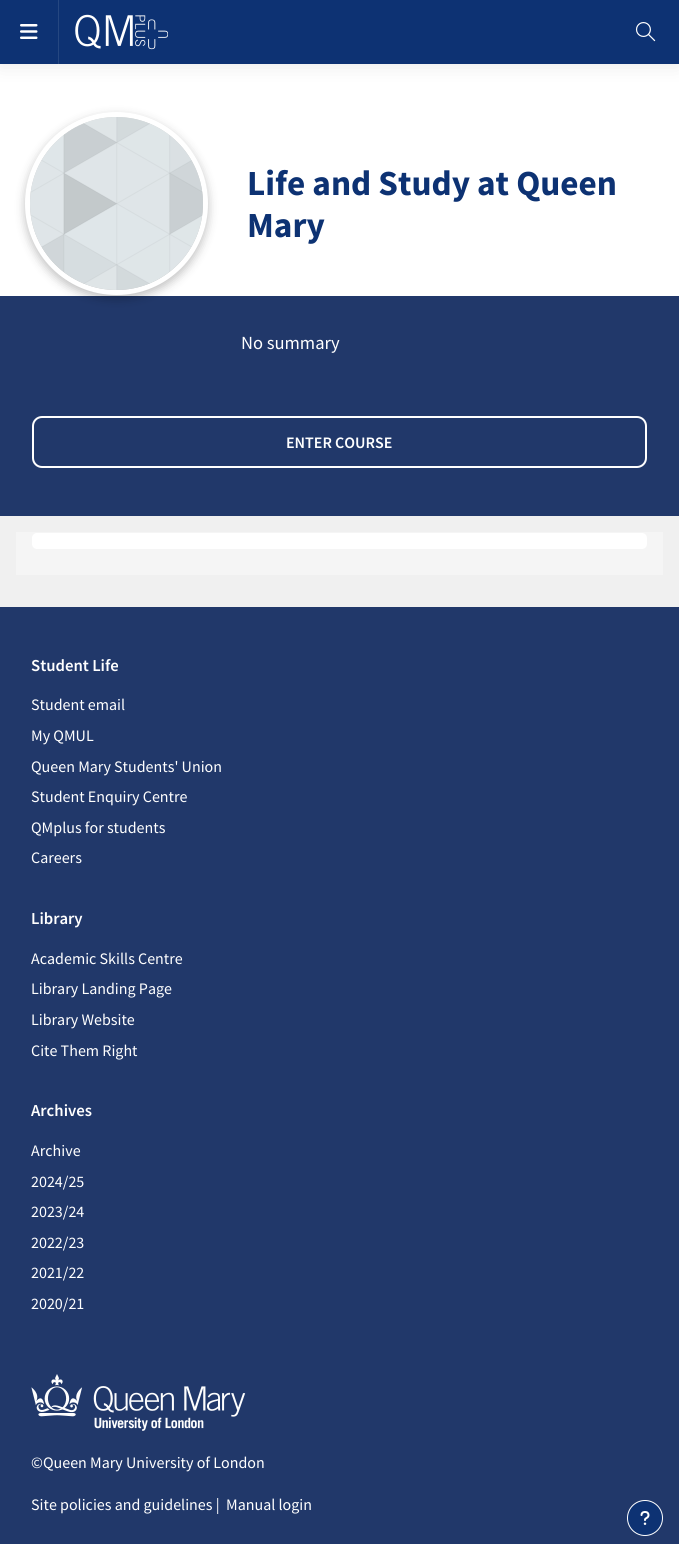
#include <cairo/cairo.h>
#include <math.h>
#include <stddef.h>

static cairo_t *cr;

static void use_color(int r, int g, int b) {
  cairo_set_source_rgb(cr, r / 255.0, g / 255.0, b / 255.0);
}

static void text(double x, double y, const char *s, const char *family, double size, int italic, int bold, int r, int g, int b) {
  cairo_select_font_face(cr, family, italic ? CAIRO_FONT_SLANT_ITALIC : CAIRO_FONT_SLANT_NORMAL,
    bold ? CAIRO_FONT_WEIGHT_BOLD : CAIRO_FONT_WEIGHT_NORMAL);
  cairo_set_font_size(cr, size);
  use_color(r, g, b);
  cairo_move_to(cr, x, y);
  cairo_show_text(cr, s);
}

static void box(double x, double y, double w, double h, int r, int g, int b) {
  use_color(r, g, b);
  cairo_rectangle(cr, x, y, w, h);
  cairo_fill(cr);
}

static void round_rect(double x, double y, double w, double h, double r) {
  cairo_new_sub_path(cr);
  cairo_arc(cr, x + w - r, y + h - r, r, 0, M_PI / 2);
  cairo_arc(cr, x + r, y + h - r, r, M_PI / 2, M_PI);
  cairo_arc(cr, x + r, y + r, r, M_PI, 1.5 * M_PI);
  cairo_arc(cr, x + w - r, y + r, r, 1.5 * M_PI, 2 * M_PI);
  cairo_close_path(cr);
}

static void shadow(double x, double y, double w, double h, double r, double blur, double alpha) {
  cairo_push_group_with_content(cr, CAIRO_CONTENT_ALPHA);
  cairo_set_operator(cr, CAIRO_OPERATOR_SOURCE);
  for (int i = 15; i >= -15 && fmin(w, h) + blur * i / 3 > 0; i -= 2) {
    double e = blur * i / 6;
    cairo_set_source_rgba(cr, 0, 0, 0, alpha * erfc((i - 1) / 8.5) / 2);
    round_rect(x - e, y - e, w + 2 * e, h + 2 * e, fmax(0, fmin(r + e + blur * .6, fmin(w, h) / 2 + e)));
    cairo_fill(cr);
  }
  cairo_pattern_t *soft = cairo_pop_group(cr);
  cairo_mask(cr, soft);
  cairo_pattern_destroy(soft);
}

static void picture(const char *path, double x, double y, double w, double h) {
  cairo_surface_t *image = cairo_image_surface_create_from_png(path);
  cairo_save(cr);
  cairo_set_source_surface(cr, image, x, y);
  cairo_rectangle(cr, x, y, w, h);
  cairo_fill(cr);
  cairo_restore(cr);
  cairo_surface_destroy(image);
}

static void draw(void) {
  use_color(240, 240, 240);
  cairo_paint(cr);
  box(0, 64, 679, 232, 255, 255, 255);
  use_color(0, 0, 0);
  shadow(0, 0, 679, 64, 0, 10, 0.1);
  box(0, 0, 679, 64, 13, 50, 115);
  box(58, 0, 1, 64, 37, 71, 129);
  picture("img_01.png", 20, 24, 18, 15);
  picture("img_02.png", 75, 14, 93, 36);
  picture("img_03.png", 635, 22, 21, 20);
  box(0, 296, 679, 220, 33, 56, 106);
  use_color(0, 0, 0);
  shadow(25, 116, 183, 183, 91.5, 5, 0.25);
  cairo_arc(cr, 116.5, 203.5, 89, 0, 2 * M_PI);
  use_color(255, 255, 255);
  cairo_set_line_width(cr, 5);
  cairo_stroke(cr);
  picture("img_04.png", 30, 117, 173, 173);
  round_rect(33, 417, 613, 50, 9);
  cairo_set_line_width(cr, 2);
  cairo_stroke(cr);
  box(16, 532, 647, 43, 245, 245, 245);
  use_color(255, 255, 255);
  round_rect(32, 533, 615, 16, 5);
  cairo_fill(cr);
  box(0, 607, 679, 937, 33, 56, 106);
  picture("img_05.png", 31, 1374, 215, 57);
  use_color(13, 50, 115);
  cairo_arc(cr, 645, 1518, 17.5, 0, 2 * M_PI);
  cairo_fill_preserve(cr);
  use_color(255, 255, 255);
  cairo_set_line_width(cr, 1);
  cairo_stroke(cr);
  picture("img_06.png", 640, 1511, 10, 14);
  text(247, 195, "Life and Study at Queen", "Source Sans Pro", 35.25, 0, 1, 13, 50, 115);
  text(247, 237, "Mary", "Source Sans Pro", 35.25, 0, 1, 13, 50, 115);
  text(241, 349, "No summary", "Source Sans Pro", 18.5, 0, 0, 255, 255, 255);
  text(286, 448, "ENTER COURSE", "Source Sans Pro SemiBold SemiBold", 16, 0, 0, 255, 255, 255);
  text(31, 671, "Student Life", "Source Sans Pro SemiBold SemiBold", 16.75, 0, 0, 255, 255, 255);
  text(31, 710, "Student email", "Source Sans Pro", 16, 0, 0, 255, 255, 255);
  text(31, 741, "My QMUL", "Source Sans Pro", 16, 0, 0, 255, 255, 255);
  text(31, 772, "Queen Mary Students' Union", "Source Sans Pro", 16, 0, 0, 255, 255, 255);
  text(31, 802, "Student Enquiry Centre", "Source Sans Pro", 16, 0, 0, 255, 255, 255);
  text(31, 833, "QMplus for students", "Source Sans Pro", 16, 0, 0, 255, 255, 255);
  text(31, 863, "Careers", "Source Sans Pro", 16, 0, 0, 255, 255, 255);
  text(31, 924, "Library", "Source Sans Pro SemiBold SemiBold", 16.75, 0, 0, 255, 255, 255);
  text(31, 964, "Academic Skills Centre", "Source Sans Pro", 16, 0, 0, 255, 255, 255);
  text(31, 994, "Library Landing Page", "Source Sans Pro", 16, 0, 0, 255, 255, 255);
  text(31, 1025, "Library Website", "Source Sans Pro", 16, 0, 0, 255, 255, 255);
  text(31, 1056, "Cite Them Right", "Source Sans Pro", 16, 0, 0, 255, 255, 255);
  text(31, 1116, "Archives", "Source Sans Pro SemiBold SemiBold", 16.75, 0, 0, 255, 255, 255);
  text(31, 1156, "Archive", "Source Sans Pro", 16, 0, 0, 255, 255, 255);
  text(31, 1187, "2024/25", "Source Sans Pro", 16, 0, 0, 255, 255, 255);
  text(31, 1217, "2023/24", "Source Sans Pro", 16, 0, 0, 255, 255, 255);
  text(31, 1248, "2022/23", "Source Sans Pro", 16, 0, 0, 255, 255, 255);
  text(31, 1278, "2021/22", "Source Sans Pro", 16, 0, 0, 255, 255, 255);
  text(31, 1309, "2020/21", "Source Sans Pro", 16, 0, 0, 255, 255, 255);
  text(31, 1468, "©Queen Mary University of London", "Source Sans Pro", 16, 0, 0, 255, 255, 255);
  text(31, 1510, "Site policies and guidelines |", "Source Sans Pro", 16, 0, 0, 255, 255, 255);
  text(226, 1510, "Manual login", "Source Sans Pro", 16, 0, 0, 255, 255, 255);
}

int main(void) {
  cairo_surface_t *surface = cairo_image_surface_create(CAIRO_FORMAT_RGB24, 679, 1544);
  cr = cairo_create(surface);
  cairo_font_options_t *options = cairo_font_options_create();
  cairo_font_options_set_hint_metrics(options, CAIRO_HINT_METRICS_OFF);
  cairo_font_options_set_hint_style(options, CAIRO_HINT_STYLE_NONE);
  cairo_set_font_options(cr, options);
  cairo_set_miter_limit(cr, 4);
  draw();
  cairo_surface_write_to_png(surface, "out.png");
  cairo_font_options_destroy(options);
  cairo_destroy(cr);
  cairo_surface_destroy(surface);
  return 0;
}
